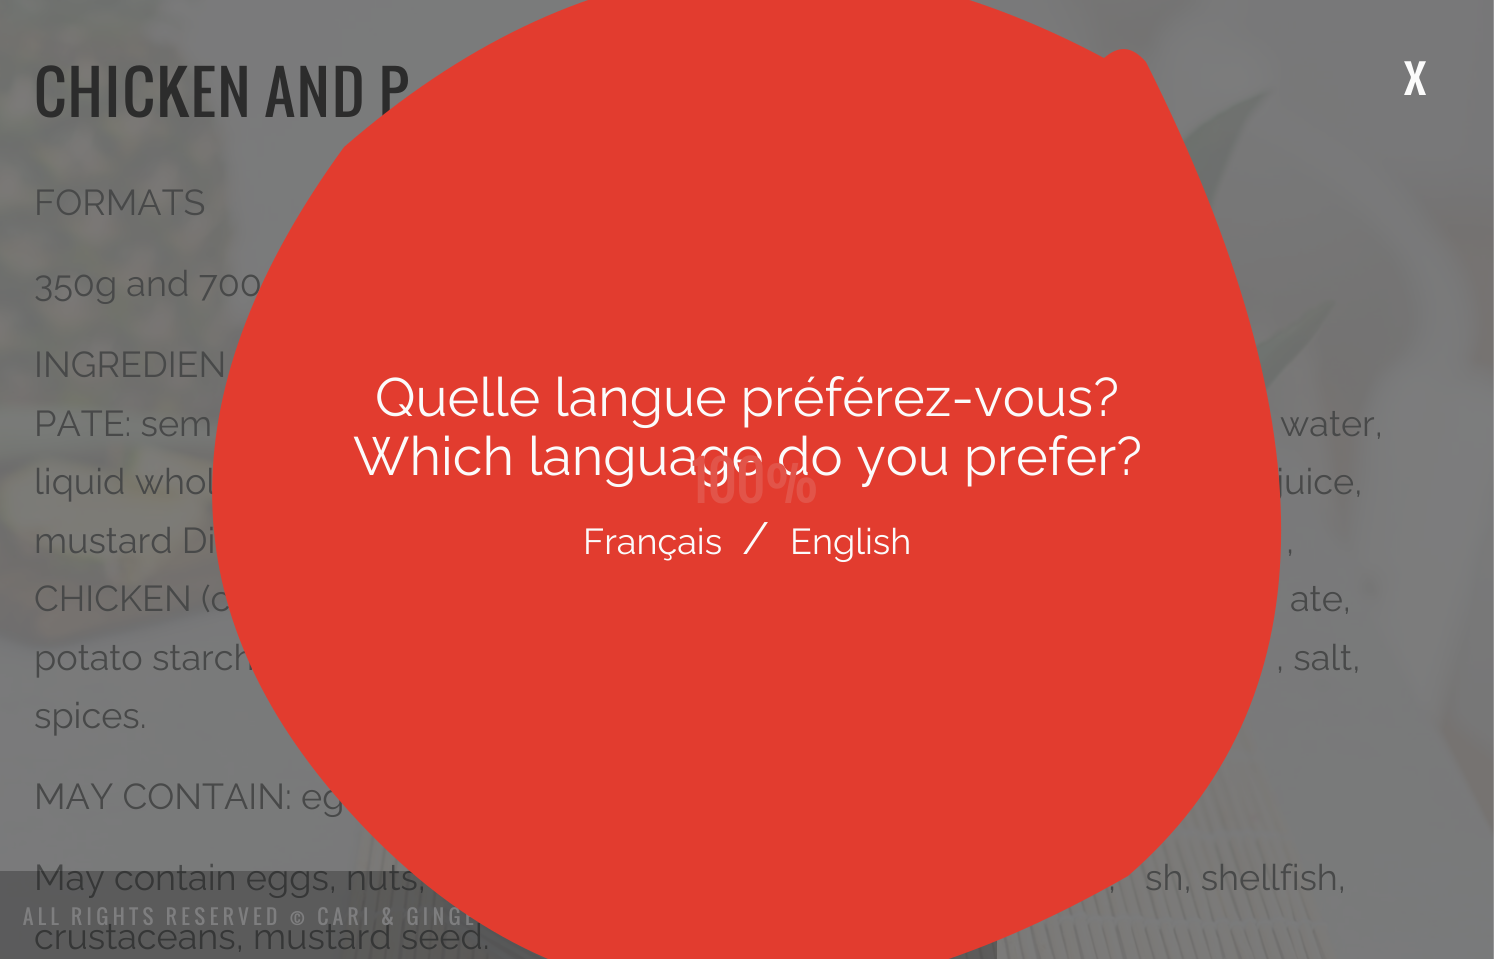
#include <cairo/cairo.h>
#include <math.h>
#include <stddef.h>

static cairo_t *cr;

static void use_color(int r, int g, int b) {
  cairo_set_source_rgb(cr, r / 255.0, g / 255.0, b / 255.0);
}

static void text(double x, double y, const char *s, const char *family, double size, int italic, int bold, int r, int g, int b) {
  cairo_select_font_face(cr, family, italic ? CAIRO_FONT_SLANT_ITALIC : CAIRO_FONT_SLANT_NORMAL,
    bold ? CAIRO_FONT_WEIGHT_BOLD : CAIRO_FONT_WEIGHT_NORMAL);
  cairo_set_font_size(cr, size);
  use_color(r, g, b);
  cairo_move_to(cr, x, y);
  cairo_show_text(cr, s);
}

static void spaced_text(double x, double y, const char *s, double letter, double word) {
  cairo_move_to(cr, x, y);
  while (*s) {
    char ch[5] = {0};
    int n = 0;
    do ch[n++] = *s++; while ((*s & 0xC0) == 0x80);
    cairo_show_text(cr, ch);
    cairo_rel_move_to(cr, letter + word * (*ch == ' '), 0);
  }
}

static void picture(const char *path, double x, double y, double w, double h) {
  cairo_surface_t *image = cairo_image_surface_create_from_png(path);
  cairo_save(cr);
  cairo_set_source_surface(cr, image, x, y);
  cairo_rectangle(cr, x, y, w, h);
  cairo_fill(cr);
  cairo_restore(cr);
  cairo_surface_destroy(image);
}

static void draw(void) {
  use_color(255, 255, 255);
  cairo_paint(cr);
  picture("img_01.png", 0, 0, 1494, 959);
  text(1404, 95, "x", "Oswald", 54, 0, 0, 251, 251, 251);
  cairo_set_font_size(cr, 58.5);
  use_color(44, 44, 44);
  spaced_text(34, 117, "CHICKEN AND P", 2.25, 0);
  text(34, 215, "FORMATS", "Raleway", 36, 0, 0, 72, 73, 73);
  text(34, 296, "350g and 700", "Raleway", 36, 0, 0, 72, 73, 73);
  text(34, 377, "INGREDIEN", "Raleway", 36, 0, 0, 72, 73, 73);
  text(34, 436, "PATE: sem", "Raleway", 36, 0, 0, 72, 73, 73);
  text(1280, 436, "water,", "Raleway", 36, 0, 0, 72, 73, 73);
  text(34, 494, "liquid whol", "Raleway", 36, 0, 0, 72, 73, 73);
  text(1276, 494, "juice,", "Raleway", 36, 0, 0, 72, 73, 73);
  text(34, 553, "mustard Di", "Raleway", 36, 0, 0, 72, 73, 73);
  text(1286, 553, ",", "Raleway", 36, 0, 0, 72, 73, 73);
  text(34, 611, "CHICKEN (c", "Raleway", 36, 0, 0, 72, 73, 73);
  text(1290, 611, "ate,", "Raleway", 36, 0, 0, 72, 73, 73);
  text(34, 670, "potato starch", "Raleway", 36, 0, 0, 72, 73, 73);
  text(1276, 670, ", salt,", "Raleway", 36, 0, 0, 72, 73, 73);
  text(34, 728, "spices.", "Raleway", 36, 0, 0, 72, 73, 73);
  text(34, 809, "MAY CONTAIN: eg", "Raleway", 36, 0, 0, 72, 73, 73);
  text(34, 890, "May contain eggs, nuts,", "Raleway", 36, 0, 0, 72, 73, 73);
  text(1108, 890, ",", "Raleway", 36, 0, 0, 72, 73, 73);
  text(1145, 890, "sh, shellfish,", "Raleway", 36, 0, 0, 72, 73, 73);
  text(34, 949, "crustaceans, mustard seed.", "Raleway", 36, 0, 0, 72, 73, 73);
  cairo_set_source_rgba(cr, 0.004, 0.004, 0.004, 0.25);
  cairo_rectangle(cr, 0, 871, 997, 88);
  cairo_fill(cr);
  cairo_select_font_face(cr, "Oswald", CAIRO_FONT_SLANT_NORMAL, CAIRO_FONT_WEIGHT_NORMAL);
  cairo_set_font_size(cr, 20.25);
  use_color(126, 126, 127);
  spaced_text(23, 925, "ALL RIGHTS RESERVED © CARI & GINGE", 4.5, 0);
  use_color(226, 60, 47);
  cairo_new_path(cr);
  cairo_move_to(cr, 1146, 62);
  cairo_curve_to(cr, 1332, 432, 1326, 704, 1128, 876);
  cairo_curve_to(cr, 806, 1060, 543, 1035, 339, 800);
  cairo_curve_to(cr, 168, 603, 170, 386, 344, 147);
  cairo_curve_to(cr, 579, -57, 832, -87, 1104, 58);
  cairo_curve_to(cr, 1119, 45, 1132, 46, 1146, 62);
  cairo_close_path(cr);
  cairo_fill(cr);
  text(790, 554, "English", "Raleway", 36, 0, 0, 251, 251, 251);
  text(742, 554, "/", "Raleway", 45, 0, 0, 251, 251, 251);
  text(583, 554, "Français", "Raleway", 36, 0, 0, 251, 251, 251);
  text(353, 475, "Which language do you prefer?", "Raleway", 54, 0, 0, 251, 251, 251);
  text(375, 416, "Quelle langue préférez-vous?", "Raleway", 54, 0, 0, 251, 251, 251);
  text(691, 503, "100%", "Oswald", 54, 0, 0, 226, 84, 73);
}

int main(void) {
  cairo_surface_t *surface = cairo_image_surface_create(CAIRO_FORMAT_RGB24, 1494, 959);
  cr = cairo_create(surface);
  cairo_font_options_t *options = cairo_font_options_create();
  cairo_font_options_set_hint_metrics(options, CAIRO_HINT_METRICS_OFF);
  cairo_font_options_set_hint_style(options, CAIRO_HINT_STYLE_NONE);
  cairo_set_font_options(cr, options);
  cairo_set_miter_limit(cr, 4);
  draw();
  cairo_surface_write_to_png(surface, "out.png");
  cairo_font_options_destroy(options);
  cairo_destroy(cr);
  cairo_surface_destroy(surface);
  return 0;
}
